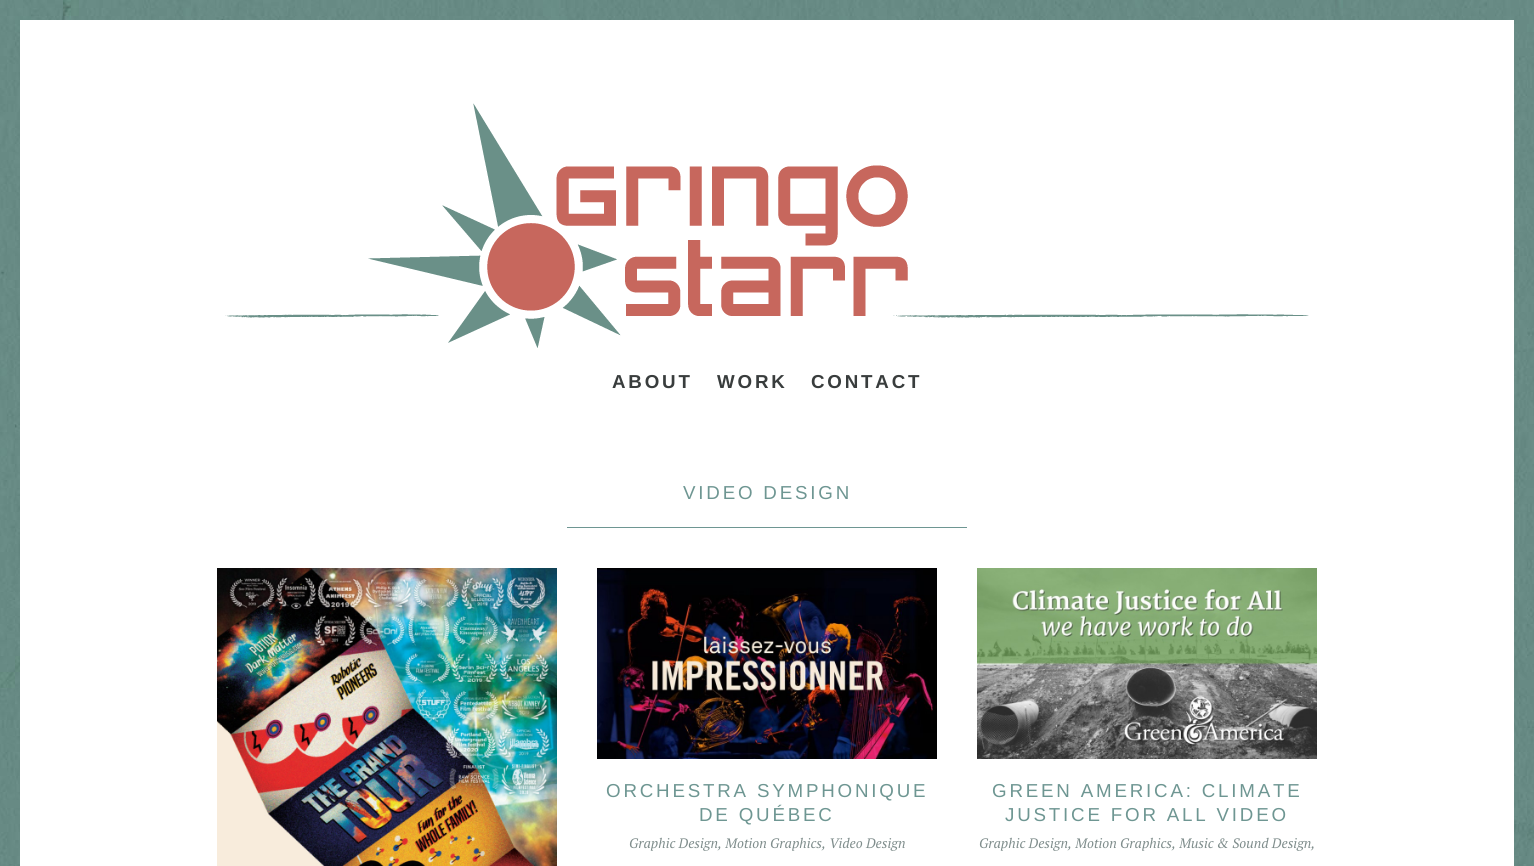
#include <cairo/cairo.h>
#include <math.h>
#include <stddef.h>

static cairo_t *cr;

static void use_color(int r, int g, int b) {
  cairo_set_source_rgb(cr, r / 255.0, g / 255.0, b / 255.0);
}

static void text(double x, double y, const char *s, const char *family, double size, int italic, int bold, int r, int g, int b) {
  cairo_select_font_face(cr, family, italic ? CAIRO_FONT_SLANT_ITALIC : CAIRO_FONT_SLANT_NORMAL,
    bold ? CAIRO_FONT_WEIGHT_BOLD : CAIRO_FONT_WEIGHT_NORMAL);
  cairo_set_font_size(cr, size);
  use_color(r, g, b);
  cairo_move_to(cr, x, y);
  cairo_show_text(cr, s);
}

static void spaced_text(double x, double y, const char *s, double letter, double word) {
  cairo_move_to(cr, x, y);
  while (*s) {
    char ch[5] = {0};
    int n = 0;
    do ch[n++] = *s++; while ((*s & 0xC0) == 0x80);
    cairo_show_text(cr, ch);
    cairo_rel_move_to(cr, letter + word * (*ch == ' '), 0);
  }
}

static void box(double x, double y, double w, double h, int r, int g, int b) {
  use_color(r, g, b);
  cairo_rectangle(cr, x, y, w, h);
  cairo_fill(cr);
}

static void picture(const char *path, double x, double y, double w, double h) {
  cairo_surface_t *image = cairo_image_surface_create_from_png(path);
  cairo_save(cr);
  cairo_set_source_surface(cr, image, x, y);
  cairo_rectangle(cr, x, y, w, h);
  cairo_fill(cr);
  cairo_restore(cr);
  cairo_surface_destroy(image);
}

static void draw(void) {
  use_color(255, 255, 255);
  cairo_paint(cr);
  picture("img_01.png", 0, 0, 1534, 866);
  box(20, 20, 1494, 846, 255, 255, 255);
  picture("img_02.png", 225, 103, 1084, 245);
  box(567, 527, 400, 1, 110, 150, 146);
  picture("img_03.png", 217, 568, 340, 298);
  picture("img_04.png", 597, 568, 340, 191);
  picture("img_05.png", 977, 568, 340, 191);
  cairo_select_font_face(cr, "Liberation Sans", CAIRO_FONT_SLANT_NORMAL, CAIRO_FONT_WEIGHT_BOLD);
  cairo_set_font_size(cr, 18.75);
  use_color(57, 61, 61);
  spaced_text(612, 388, "ABOUT", 2.8, 0);
  spaced_text(717, 388, "WORK", 2.8, 0);
  spaced_text(811, 388, "CONTACT", 2.8, 0);
  cairo_select_font_face(cr, "Liberation Sans", CAIRO_FONT_SLANT_NORMAL, CAIRO_FONT_WEIGHT_NORMAL);
  use_color(110, 150, 146);
  spaced_text(683, 499, "VIDEO DESIGN", 2.8, 0);
  spaced_text(606, 797, "ORCHESTRA SYMPHONIQUE", 2.8, 0);
  spaced_text(699, 821, "DE QUÉBEC", 2.8, 0);
  text(629, 848, "Graphic Design, Motion Graphics, Video Design", "PT Serif", 13.65, 1, 0, 127, 141, 140);
  cairo_select_font_face(cr, "Liberation Sans", CAIRO_FONT_SLANT_NORMAL, CAIRO_FONT_WEIGHT_NORMAL);
  cairo_set_font_size(cr, 18.75);
  use_color(110, 150, 146);
  spaced_text(992, 797, "GREEN AMERICA: CLIMATE", 2.8, 0);
  spaced_text(1005, 821, "JUSTICE FOR ALL VIDEO", 2.8, 0);
  text(979, 848, "Graphic Design, Motion Graphics, Music & Sound Design,", "PT Serif", 13.65, 1, 0, 127, 141, 140);
}

int main(void) {
  cairo_surface_t *surface = cairo_image_surface_create(CAIRO_FORMAT_RGB24, 1534, 866);
  cr = cairo_create(surface);
  cairo_font_options_t *options = cairo_font_options_create();
  cairo_font_options_set_hint_metrics(options, CAIRO_HINT_METRICS_OFF);
  cairo_font_options_set_hint_style(options, CAIRO_HINT_STYLE_NONE);
  cairo_set_font_options(cr, options);
  cairo_set_miter_limit(cr, 4);
  draw();
  cairo_surface_write_to_png(surface, "out.png");
  cairo_font_options_destroy(options);
  cairo_destroy(cr);
  cairo_surface_destroy(surface);
  return 0;
}
